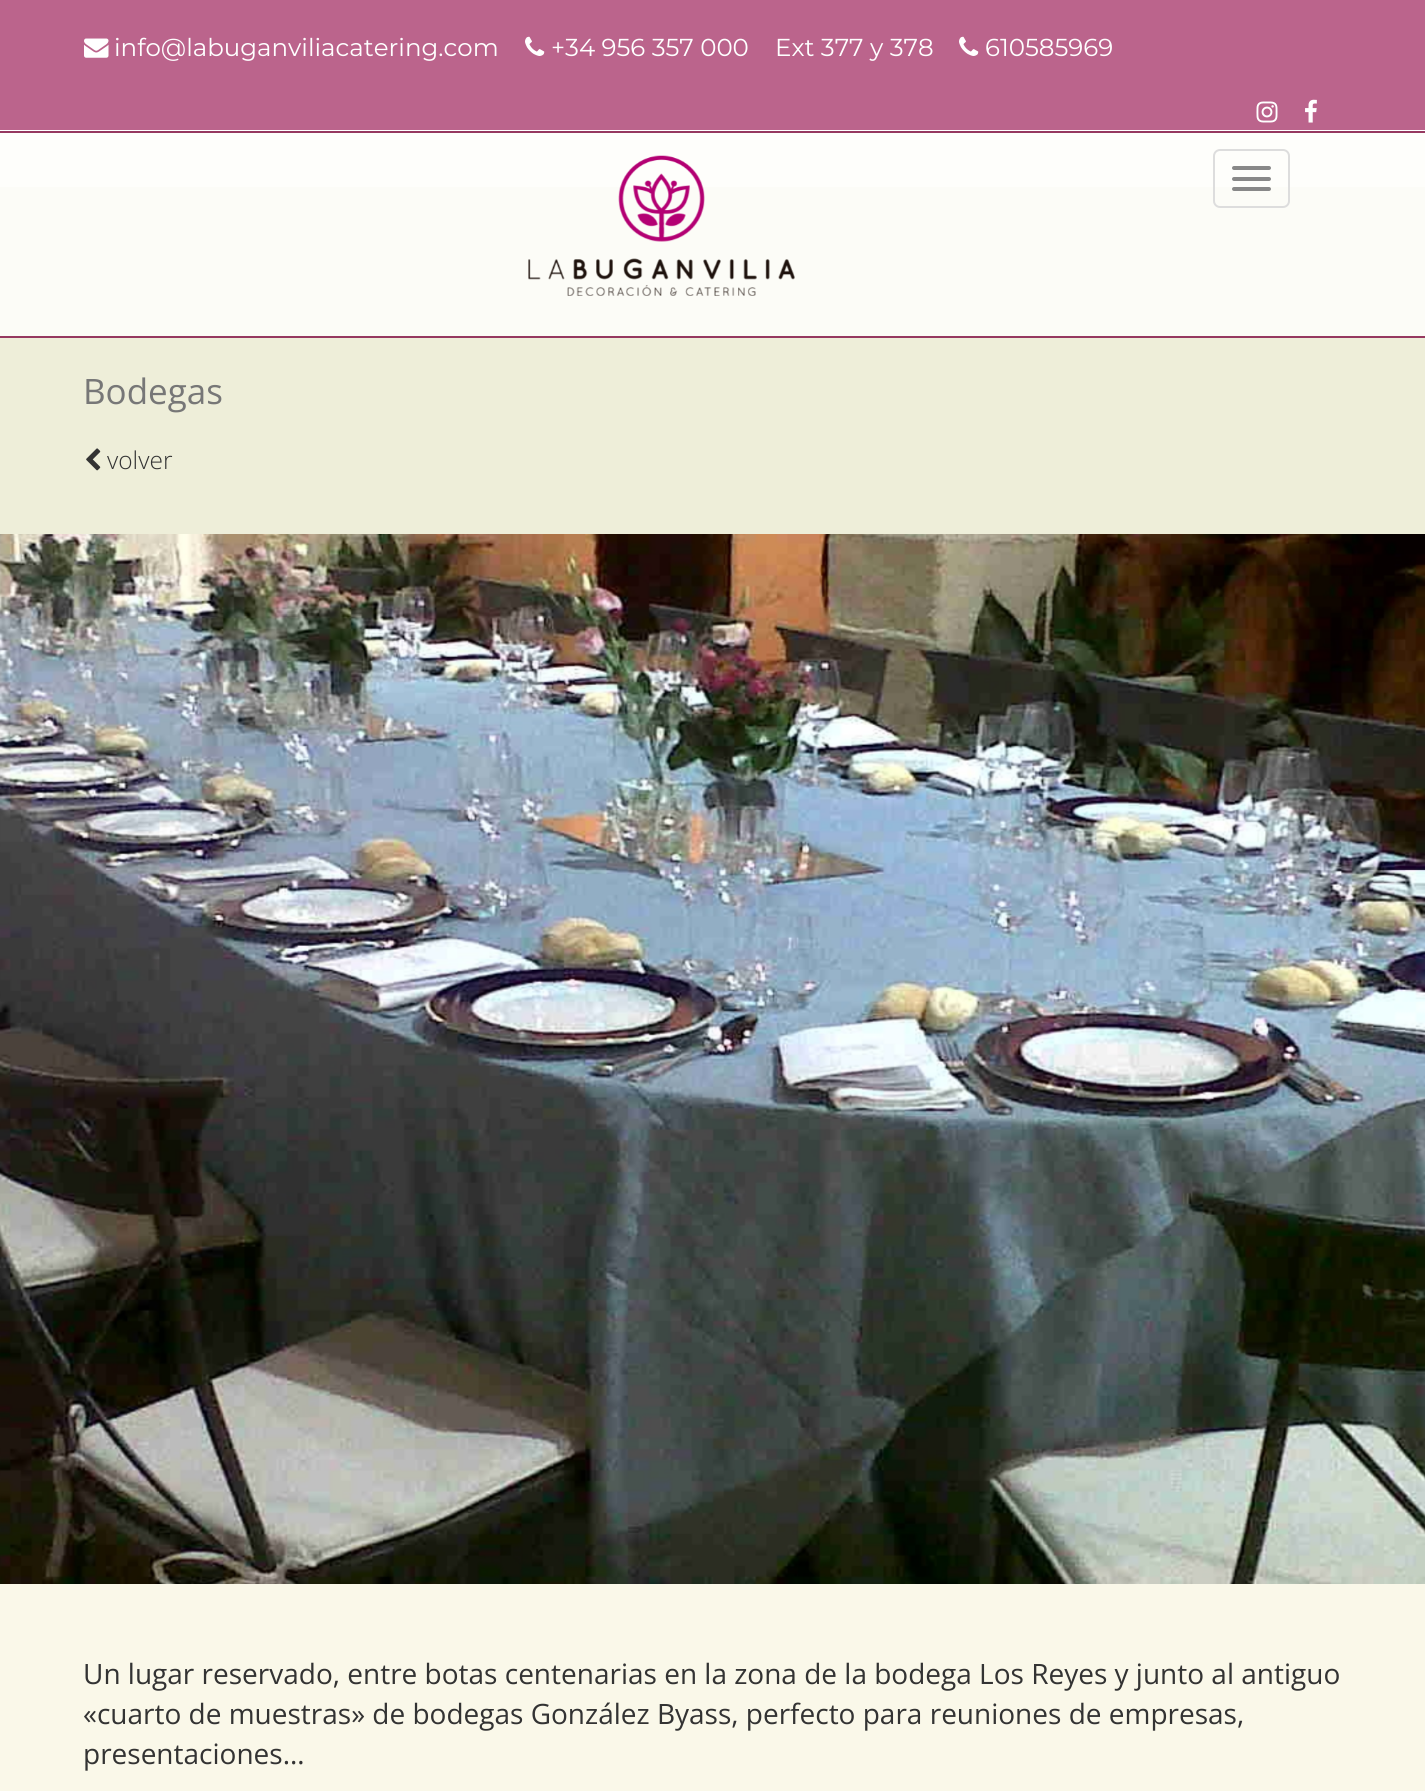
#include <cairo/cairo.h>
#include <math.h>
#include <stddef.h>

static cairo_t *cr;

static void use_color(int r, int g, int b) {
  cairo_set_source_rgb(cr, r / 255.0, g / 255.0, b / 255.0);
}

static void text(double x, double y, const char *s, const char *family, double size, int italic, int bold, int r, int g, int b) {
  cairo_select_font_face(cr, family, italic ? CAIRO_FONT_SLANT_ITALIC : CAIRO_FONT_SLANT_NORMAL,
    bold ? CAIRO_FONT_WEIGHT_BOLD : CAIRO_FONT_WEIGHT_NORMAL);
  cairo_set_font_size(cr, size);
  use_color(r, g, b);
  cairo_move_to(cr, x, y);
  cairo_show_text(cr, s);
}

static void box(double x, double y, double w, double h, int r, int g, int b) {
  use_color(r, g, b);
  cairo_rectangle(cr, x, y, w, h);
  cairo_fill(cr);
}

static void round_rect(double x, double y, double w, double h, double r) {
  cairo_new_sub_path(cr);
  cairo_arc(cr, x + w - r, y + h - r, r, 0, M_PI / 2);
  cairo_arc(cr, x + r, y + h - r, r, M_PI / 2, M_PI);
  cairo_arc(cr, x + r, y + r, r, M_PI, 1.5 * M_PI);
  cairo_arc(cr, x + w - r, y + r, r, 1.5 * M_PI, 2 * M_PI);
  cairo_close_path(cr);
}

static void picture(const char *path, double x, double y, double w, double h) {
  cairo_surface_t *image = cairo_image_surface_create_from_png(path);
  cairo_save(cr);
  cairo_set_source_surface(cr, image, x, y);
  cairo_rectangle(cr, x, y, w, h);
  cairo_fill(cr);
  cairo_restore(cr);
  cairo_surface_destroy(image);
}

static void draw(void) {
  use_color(250, 248, 233);
  cairo_paint(cr);
  box(0, 0, 1425, 130, 187, 100, 140);
  box(0, 130, 1425, 1, 255, 255, 255);
  picture("img_01.png", 84, 38, 25, 20);
  picture("img_02.png", 525, 36, 20, 20);
  picture("img_02.png", 959, 36, 20, 20);
  picture("img_03.png", 1256, 101, 22, 22);
  picture("img_04.png", 1305, 99, 12, 24);
  box(0, 187, 1425, 347, 238, 238, 217);
  cairo_set_source_rgba(cr, 1, 1, 1, 0.8);
  cairo_rectangle(cr, 0, 133, 1425, 203);
  cairo_fill(cr);
  box(0, 131, 1425, 2, 150, 57, 96);
  box(0, 336, 1425, 2, 150, 57, 96);
  picture("img_05.png", 528, 155, 267, 141);
  round_rect(1214, 150, 75, 57, 6);
  use_color(221, 221, 221);
  cairo_stroke(cr);
  use_color(136, 136, 136);
  round_rect(1232, 166, 39, 4, 2);
  cairo_fill(cr);
  round_rect(1232, 177, 39, 4, 2);
  cairo_fill(cr);
  round_rect(1232, 187, 39, 4, 2);
  cairo_fill(cr);
  picture("img_06.png", 86, 448, 15, 23);
  picture("img_07.png", 0, 534, 1425, 1050);
  text(114, 56, "info@labuganviliacatering.com", "Montserrat", 24.5, 0, 0, 255, 255, 255);
  text(551, 56, "+34 956 357 000", "Montserrat", 24.5, 0, 0, 255, 255, 255);
  text(775, 56, "Ext 377 y 378", "Montserrat", 24.5, 0, 0, 255, 255, 255);
  text(985, 56, "610585969", "Montserrat", 24.5, 0, 0, 255, 255, 255);
  text(83, 404, "Bodegas", "Open Sans", 35, 0, 0, 119, 119, 119);
  text(107, 469, "volver", "Open Sans Light", 24.5, 0, 0, 51, 51, 51);
  text(83, 1684, "Un lugar reservado, entre botas centenarias en la zona de la bodega Los Reyes y junto al antiguo", "Open Sans", 28, 0, 0, 51, 51, 51);
  text(83, 1724, "«cuarto de muestras» de bodegas González Byass, perfecto para reuniones de empresas,", "Open Sans", 28, 0, 0, 51, 51, 51);
  text(83, 1764, "presentaciones…", "Open Sans", 28, 0, 0, 51, 51, 51);
}

int main(void) {
  cairo_surface_t *surface = cairo_image_surface_create(CAIRO_FORMAT_RGB24, 1425, 1791);
  cr = cairo_create(surface);
  cairo_font_options_t *options = cairo_font_options_create();
  cairo_font_options_set_hint_metrics(options, CAIRO_HINT_METRICS_OFF);
  cairo_font_options_set_hint_style(options, CAIRO_HINT_STYLE_NONE);
  cairo_set_font_options(cr, options);
  cairo_set_miter_limit(cr, 4);
  draw();
  cairo_surface_write_to_png(surface, "out.png");
  cairo_font_options_destroy(options);
  cairo_destroy(cr);
  cairo_surface_destroy(surface);
  return 0;
}
